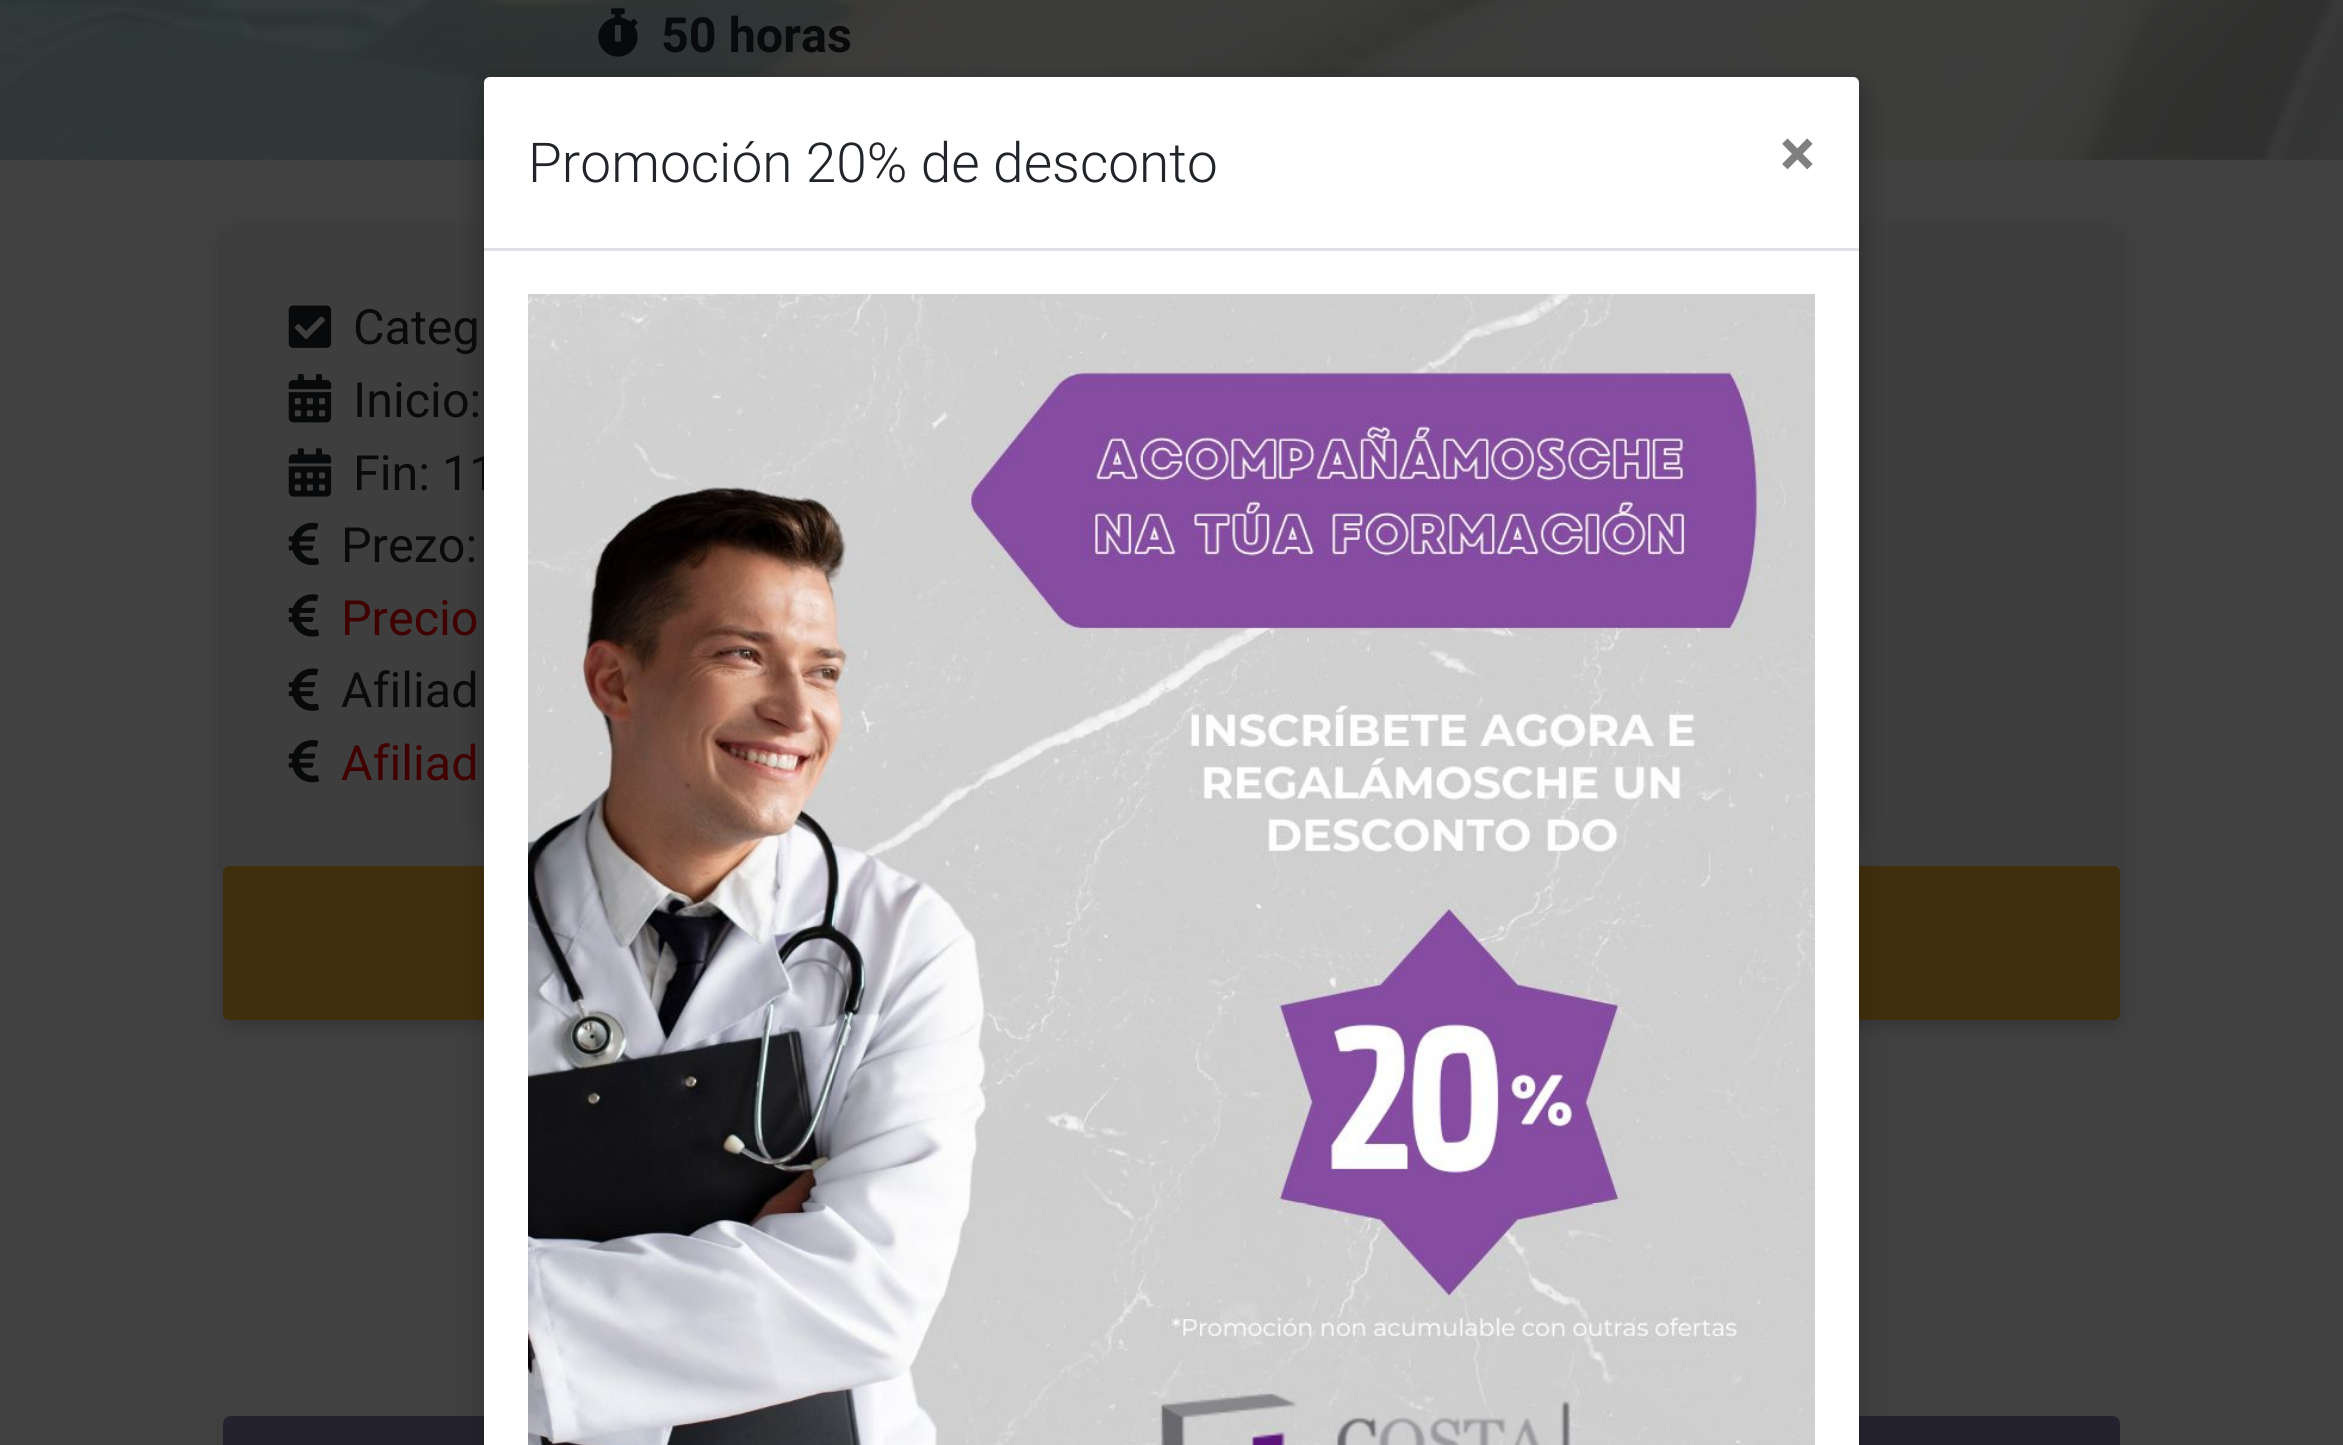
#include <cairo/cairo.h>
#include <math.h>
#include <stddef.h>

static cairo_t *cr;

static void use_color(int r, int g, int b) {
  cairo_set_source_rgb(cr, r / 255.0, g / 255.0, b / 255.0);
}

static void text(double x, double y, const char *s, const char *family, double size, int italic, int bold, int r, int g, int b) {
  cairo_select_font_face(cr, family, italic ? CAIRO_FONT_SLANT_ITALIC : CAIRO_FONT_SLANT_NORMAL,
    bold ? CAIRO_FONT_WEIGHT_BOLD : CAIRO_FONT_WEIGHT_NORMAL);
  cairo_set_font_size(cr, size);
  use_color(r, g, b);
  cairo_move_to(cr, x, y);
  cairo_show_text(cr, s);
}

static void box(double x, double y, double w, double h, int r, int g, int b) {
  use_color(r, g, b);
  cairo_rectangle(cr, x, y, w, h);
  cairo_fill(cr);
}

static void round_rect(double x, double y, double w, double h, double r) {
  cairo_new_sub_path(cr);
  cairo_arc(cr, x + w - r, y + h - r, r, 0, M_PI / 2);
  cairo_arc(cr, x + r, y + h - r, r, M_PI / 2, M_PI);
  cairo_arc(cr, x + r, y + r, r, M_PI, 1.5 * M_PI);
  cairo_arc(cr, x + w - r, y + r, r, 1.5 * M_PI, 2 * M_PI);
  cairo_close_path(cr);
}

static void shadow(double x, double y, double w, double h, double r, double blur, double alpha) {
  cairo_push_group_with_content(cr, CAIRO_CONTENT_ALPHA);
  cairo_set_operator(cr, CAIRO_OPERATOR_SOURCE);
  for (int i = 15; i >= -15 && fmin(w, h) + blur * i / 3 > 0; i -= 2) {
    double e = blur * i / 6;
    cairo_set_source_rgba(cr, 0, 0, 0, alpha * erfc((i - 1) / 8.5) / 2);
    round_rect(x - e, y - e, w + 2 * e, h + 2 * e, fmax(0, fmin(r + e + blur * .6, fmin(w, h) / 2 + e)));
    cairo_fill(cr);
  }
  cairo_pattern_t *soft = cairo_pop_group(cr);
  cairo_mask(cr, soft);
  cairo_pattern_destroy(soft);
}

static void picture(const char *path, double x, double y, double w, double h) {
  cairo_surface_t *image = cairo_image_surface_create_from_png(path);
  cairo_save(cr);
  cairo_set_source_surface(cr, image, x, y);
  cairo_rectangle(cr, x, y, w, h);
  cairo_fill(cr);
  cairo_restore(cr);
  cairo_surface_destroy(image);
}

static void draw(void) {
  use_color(64, 64, 64);
  cairo_paint(cr);
  picture("img_01.png", 0, 0, 2343, 160);
  picture("img_02.png", 598, 8, 40, 49);
  use_color(0, 0, 0);
  shadow(223, 231, 1897, 795, 11, 7, 0.16);
  use_color(62, 62, 62);
  round_rect(223, 226, 1897, 794, 11);
  cairo_fill(cr);
  picture("img_03.png", 288, 305, 44, 43);
  picture("img_04.png", 288, 374, 44, 49);
  picture("img_05.png", 288, 448, 44, 49);
  picture("img_06.png", 288, 522, 31, 44);
  picture("img_07.png", 288, 594, 31, 43);
  picture("img_08.png", 288, 668, 31, 43);
  picture("img_09.png", 288, 740, 31, 43);
  use_color(64, 47, 13);
  round_rect(223, 866, 1897, 154, 6);
  cairo_fill(cr);
  cairo_set_source_rgba(cr, 0.114, 0.106, 0.165, 0.8);
  cairo_new_path(cr);
  cairo_move_to(cr, 231, 1416);
  cairo_line_to(cr, 2112, 1416);
  cairo_curve_to(cr, 2116.5, 1416, 2120, 1419.5, 2120, 1424);
  cairo_line_to(cr, 2120, 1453);
  cairo_line_to(cr, 223, 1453);
  cairo_line_to(cr, 223, 1424);
  cairo_curve_to(cr, 223, 1419.5, 226.5, 1416, 231, 1416);
  cairo_close_path(cr);
  cairo_fill(cr);
  use_color(0, 0, 0);
  shadow(484, 91, 1375, 737, 6, 15, 0.18);
  shadow(484, 91, 1375, 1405, 6, 15, 0.18);
  text(661, 52, "50 horas", "Roboto", 48.5, 0, 1, 9, 10, 11);
  text(353, 344, "Categ", "Roboto", 48.5, 0, 0, 9, 10, 11);
  text(353, 417, "Inicio:", "Roboto", 48.5, 0, 0, 9, 10, 11);
  text(353, 490, "Fin: 11", "Roboto", 48.5, 0, 0, 9, 10, 11);
  text(341, 562, "Prezo:", "Roboto", 48.5, 0, 0, 9, 10, 11);
  text(341, 635, "Precio", "Roboto", 48.5, 0, 0, 64, 0, 0);
  text(341, 707, "Afiliad", "Roboto", 48.5, 0, 0, 9, 10, 11);
  text(341, 780, "Afiliad", "Roboto", 48.5, 0, 0, 64, 0, 0);
  use_color(255, 255, 255);
  cairo_new_path(cr);
  cairo_move_to(cr, 490, 77);
  cairo_line_to(cr, 1853, 77);
  cairo_curve_to(cr, 1856.5, 77, 1859, 79.5, 1859, 83);
  cairo_line_to(cr, 1859, 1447);
  cairo_line_to(cr, 484, 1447);
  cairo_line_to(cr, 484, 83);
  cairo_curve_to(cr, 484, 79.5, 486.5, 77, 490, 77);
  cairo_close_path(cr);
  cairo_fill(cr);
  box(484, 248, 1375, 3, 222, 226, 230);
  text(528, 182, "Promoción 20% de desconto", "Roboto Light", 55, 0, 0, 33, 37, 41);
  text(1780, 176, "×", "Roboto", 66, 0, 1, 128, 128, 128);
  picture("img_10.png", 528, 294, 1287, 1151);
}

int main(void) {
  cairo_surface_t *surface = cairo_image_surface_create(CAIRO_FORMAT_RGB24, 2343, 1445);
  cr = cairo_create(surface);
  cairo_font_options_t *options = cairo_font_options_create();
  cairo_font_options_set_hint_metrics(options, CAIRO_HINT_METRICS_OFF);
  cairo_font_options_set_hint_style(options, CAIRO_HINT_STYLE_NONE);
  cairo_set_font_options(cr, options);
  cairo_set_miter_limit(cr, 4);
  draw();
  cairo_surface_write_to_png(surface, "out.png");
  cairo_font_options_destroy(options);
  cairo_destroy(cr);
  cairo_surface_destroy(surface);
  return 0;
}
